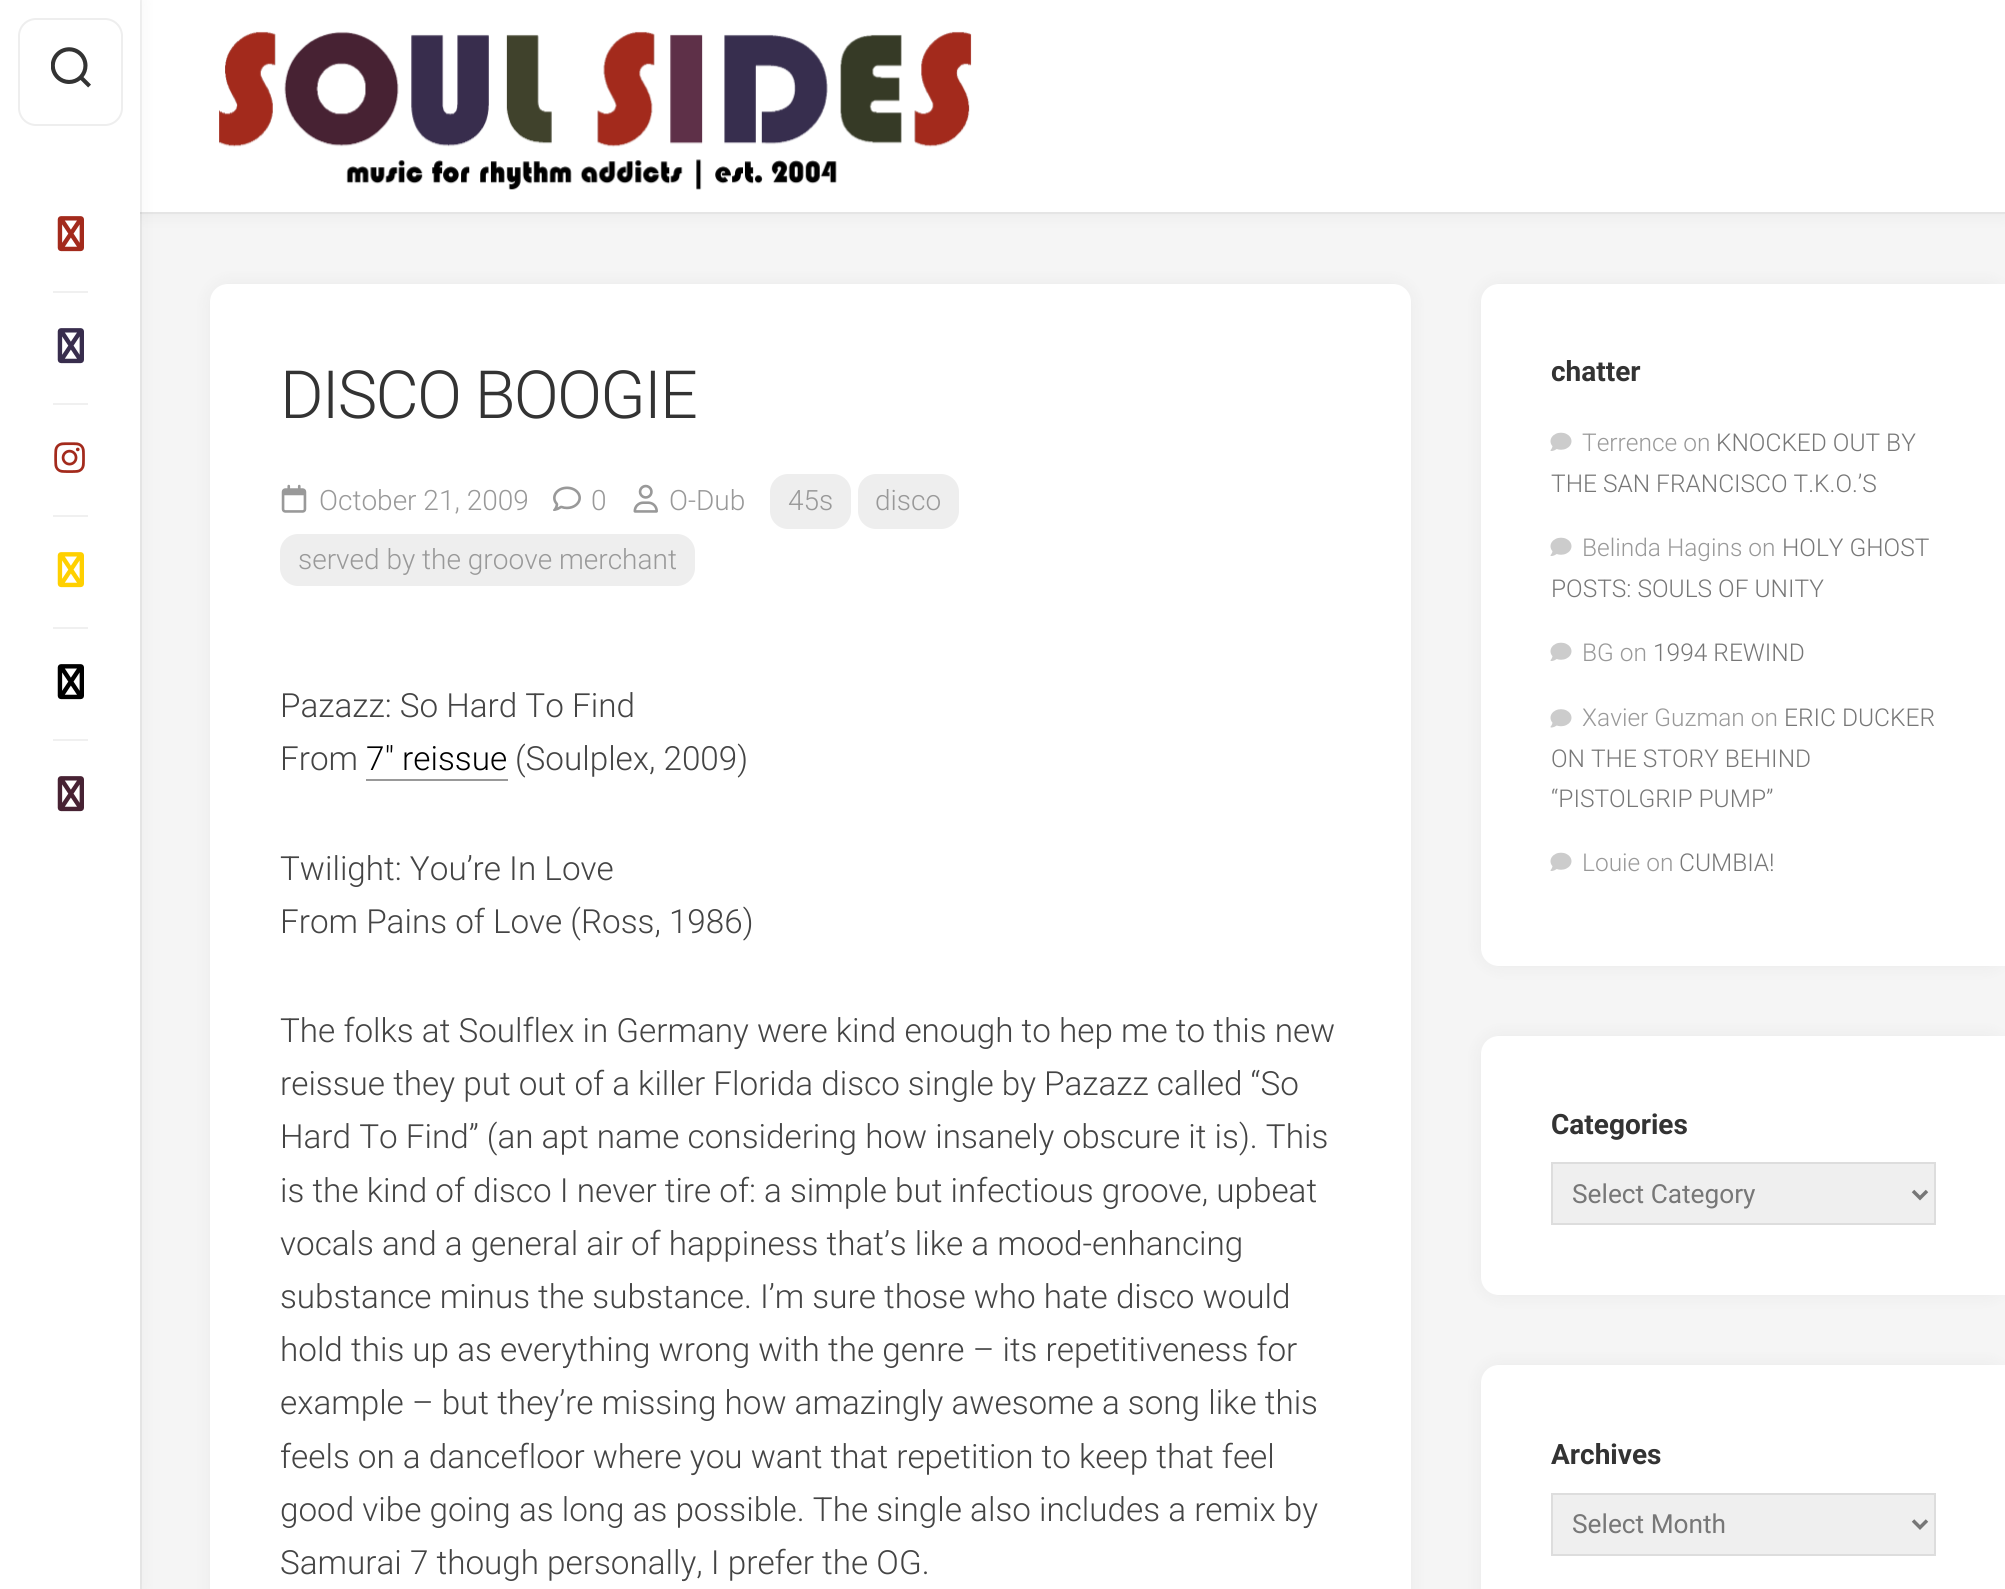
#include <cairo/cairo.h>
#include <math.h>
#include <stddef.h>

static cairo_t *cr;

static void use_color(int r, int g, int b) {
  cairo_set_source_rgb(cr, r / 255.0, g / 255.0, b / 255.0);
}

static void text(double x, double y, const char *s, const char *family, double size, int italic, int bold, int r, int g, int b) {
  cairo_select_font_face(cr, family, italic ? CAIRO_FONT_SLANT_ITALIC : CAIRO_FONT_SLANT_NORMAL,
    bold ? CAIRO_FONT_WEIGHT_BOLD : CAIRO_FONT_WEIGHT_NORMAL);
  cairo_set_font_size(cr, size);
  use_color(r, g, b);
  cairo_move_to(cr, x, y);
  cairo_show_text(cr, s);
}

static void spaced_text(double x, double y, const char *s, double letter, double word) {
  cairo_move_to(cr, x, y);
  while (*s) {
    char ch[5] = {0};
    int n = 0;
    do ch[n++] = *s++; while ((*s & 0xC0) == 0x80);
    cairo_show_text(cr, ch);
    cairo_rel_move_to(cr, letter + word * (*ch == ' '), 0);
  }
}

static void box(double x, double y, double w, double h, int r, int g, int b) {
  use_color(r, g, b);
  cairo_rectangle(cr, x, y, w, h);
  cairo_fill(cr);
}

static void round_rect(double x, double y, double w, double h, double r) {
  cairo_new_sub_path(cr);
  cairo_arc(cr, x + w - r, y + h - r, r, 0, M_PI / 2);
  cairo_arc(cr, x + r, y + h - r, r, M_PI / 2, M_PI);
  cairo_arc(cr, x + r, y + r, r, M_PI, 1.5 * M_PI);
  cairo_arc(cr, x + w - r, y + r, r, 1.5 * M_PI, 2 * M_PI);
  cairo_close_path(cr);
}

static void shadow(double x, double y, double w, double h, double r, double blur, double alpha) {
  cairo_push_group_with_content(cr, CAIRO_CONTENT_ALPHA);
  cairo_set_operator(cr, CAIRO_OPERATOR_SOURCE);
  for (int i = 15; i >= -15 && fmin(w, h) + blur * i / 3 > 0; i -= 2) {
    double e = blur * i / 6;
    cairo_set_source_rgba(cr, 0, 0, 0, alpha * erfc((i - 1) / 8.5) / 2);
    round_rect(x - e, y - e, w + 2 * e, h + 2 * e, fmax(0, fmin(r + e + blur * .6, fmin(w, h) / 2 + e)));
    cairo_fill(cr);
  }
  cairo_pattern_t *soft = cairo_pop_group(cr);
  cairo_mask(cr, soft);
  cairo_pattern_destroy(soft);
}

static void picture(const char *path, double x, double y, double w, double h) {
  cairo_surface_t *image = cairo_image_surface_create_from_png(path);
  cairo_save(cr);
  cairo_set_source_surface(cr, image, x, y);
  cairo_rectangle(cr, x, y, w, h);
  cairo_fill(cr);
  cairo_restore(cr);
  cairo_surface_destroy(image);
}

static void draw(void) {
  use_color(245, 245, 245);
  cairo_paint(cr);
  box(140, 0, 1865, 2, 255, 255, 255);
  cairo_save(cr);
  cairo_rectangle(cr, 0, 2, 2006, 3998);
  cairo_clip(cr);
  use_color(0, 0, 0);
  shadow(140, 2, 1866, 212, 0, 9, 0.05);
  cairo_restore(cr);
  box(140, 2, 1865, 210, 255, 255, 255);
  box(140, 212, 1865, 2, 229, 229, 229);
  cairo_set_source_rgba(cr, 0, 0, 0, 0.05);
  cairo_rectangle(cr, 140, 0, 2, 1589);
  cairo_fill(cr);
  use_color(0, 0, 0);
  shadow(0, 0, 140, 1589, 0, 9, 0.05);
  box(0, 0, 140, 1589, 255, 255, 255);
  round_rect(19, 19, 103, 106, 17);
  use_color(238, 238, 238);
  cairo_stroke(cr);
  picture("img_01.png", 51, 47, 40, 41);
  picture("img_02.png", 57, 216, 27, 36);
  box(53, 291, 35, 2, 240, 240, 240);
  picture("img_03.png", 57, 328, 27, 36);
  box(53, 403, 35, 2, 240, 240, 240);
  picture("img_04.png", 54, 442, 31, 31);
  box(53, 515, 35, 2, 240, 240, 240);
  picture("img_05.png", 57, 552, 27, 36);
  box(53, 627, 35, 2, 240, 240, 240);
  picture("img_06.png", 57, 664, 27, 36);
  box(53, 739, 35, 2, 240, 240, 240);
  picture("img_07.png", 57, 776, 27, 36);
  picture("img_08.png", 219, 31, 753, 159);
  use_color(0, 0, 0);
  shadow(210, 284, 1201, 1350, 18, 9, 0.05);
  use_color(255, 255, 255);
  round_rect(210, 284, 1201, 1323, 18);
  cairo_fill(cr);
  use_color(238, 238, 238);
  round_rect(770, 474, 81, 55, 18);
  cairo_fill(cr);
  round_rect(858, 474, 101, 55, 18);
  cairo_fill(cr);
  round_rect(280, 534, 415, 52, 18);
  cairo_fill(cr);
  picture("img_09.png", 281, 484, 26, 29);
  picture("img_10.png", 553, 486, 28, 25);
  picture("img_11.png", 633, 484, 25, 29);
  use_color(153, 153, 153);
  cairo_new_path(cr);
  cairo_move_to(cr, 366, 779);
  cairo_line_to(cr, 366, 781);
  cairo_line_to(cr, 508, 781);
  cairo_line_to(cr, 508, 740);
  cairo_line_to(cr, 508, 779);
  cairo_close_path(cr);
  cairo_fill(cr);
  use_color(0, 0, 0);
  shadow(1481, 284, 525, 682, 18, 9, 0.05);
  use_color(255, 255, 255);
  cairo_new_path(cr);
  cairo_move_to(cr, 1499, 284);
  cairo_line_to(cr, 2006, 284);
  cairo_line_to(cr, 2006, 966);
  cairo_line_to(cr, 1499, 966);
  cairo_curve_to(cr, 1489, 966, 1481, 958, 1481, 948);
  cairo_line_to(cr, 1481, 302);
  cairo_curve_to(cr, 1481, 292, 1489, 284, 1499, 284);
  cairo_close_path(cr);
  cairo_fill(cr);
  picture("img_12.png", 1550, 432, 22, 19);
  picture("img_12.png", 1550, 537, 22, 19);
  picture("img_12.png", 1550, 642, 22, 19);
  picture("img_13.png", 1550, 709, 22, 19);
  picture("img_12.png", 1550, 852, 22, 19);
  use_color(0, 0, 0);
  shadow(1481, 1036, 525, 259, 18, 9, 0.05);
  use_color(255, 255, 255);
  cairo_new_path(cr);
  cairo_move_to(cr, 1499, 1036);
  cairo_line_to(cr, 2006, 1036);
  cairo_line_to(cr, 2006, 1295);
  cairo_line_to(cr, 1499, 1295);
  cairo_curve_to(cr, 1489, 1295, 1481, 1287, 1481, 1277);
  cairo_line_to(cr, 1481, 1054);
  cairo_curve_to(cr, 1481, 1044, 1489, 1036, 1499, 1036);
  cairo_close_path(cr);
  cairo_fill(cr);
  use_color(239, 239, 239);
  cairo_rectangle(cr, 1552, 1163, 383, 61);
  cairo_fill_preserve(cr);
  use_color(221, 221, 221);
  cairo_stroke(cr);
  cairo_new_path(cr);
  cairo_move_to(cr, 1913, 1191);
  cairo_line_to(cr, 1920, 1198);
  cairo_line_to(cr, 1927, 1191);
  use_color(119, 119, 119);
  cairo_set_line_width(cr, 3.5);
  cairo_stroke(cr);
  use_color(0, 0, 0);
  shadow(1481, 1365, 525, 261, 18, 9, 0.05);
  use_color(255, 255, 255);
  cairo_new_path(cr);
  cairo_move_to(cr, 1499, 1365);
  cairo_line_to(cr, 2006, 1365);
  cairo_line_to(cr, 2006, 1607);
  cairo_line_to(cr, 1499, 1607);
  cairo_curve_to(cr, 1489, 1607, 1481, 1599, 1481, 1589);
  cairo_line_to(cr, 1481, 1383);
  cairo_curve_to(cr, 1481, 1373, 1489, 1365, 1499, 1365);
  cairo_close_path(cr);
  cairo_fill(cr);
  use_color(239, 239, 239);
  cairo_rectangle(cr, 1552, 1494, 383, 61);
  cairo_fill_preserve(cr);
  use_color(221, 221, 221);
  cairo_set_line_width(cr, 2);
  cairo_stroke(cr);
  cairo_new_path(cr);
  cairo_move_to(cr, 1913, 1520.5);
  cairo_line_to(cr, 1920, 1527.5);
  cairo_line_to(cr, 1927, 1520.5);
  use_color(119, 119, 119);
  cairo_set_line_width(cr, 3.5);
  cairo_stroke(cr);
  cairo_select_font_face(cr, "Roboto Light", CAIRO_FONT_SLANT_NORMAL, CAIRO_FONT_WEIGHT_NORMAL);
  cairo_set_font_size(cr, 66.5);
  use_color(51, 51, 51);
  spaced_text(280, 418, "DISCO BOOGIE", -1.75, 0);
  text(788, 510, "45s", "Roboto Light", 28, 0, 0, 153, 153, 153);
  text(875, 510, "disco", "Roboto Light", 28, 0, 0, 153, 153, 153);
  text(298, 569, "served by the groove merchant", "Roboto Light", 28, 0, 0, 153, 153, 153);
  text(319, 510, "October 21, 2009", "Roboto Light", 28, 0, 0, 153, 153, 153);
  text(591, 510, "0", "Roboto Light", 28, 0, 0, 153, 153, 153);
  text(669, 510, "O-Dub", "Roboto Light", 28, 0, 0, 153, 153, 153);
  text(280, 717, "Pazazz: So Hard To Find", "Roboto Light", 33.25, 0, 0, 68, 68, 68);
  text(280, 770, "From", "Roboto Light", 33.25, 0, 0, 68, 68, 68);
  text(366, 770, "7″ reissue", "Roboto Light", 33.25, 0, 0, 0, 0, 0);
  text(515, 770, "(Soulplex, 2009)", "Roboto Light", 33.25, 0, 0, 68, 68, 68);
  text(280, 880, "Twilight: You’re In Love", "Roboto Light", 33.25, 0, 0, 68, 68, 68);
  text(280, 933, "From Pains of Love (Ross, 1986)", "Roboto Light", 33.25, 0, 0, 68, 68, 68);
  text(280, 1042, "The folks at Soulflex in Germany were kind enough to hep me to this new", "Roboto Light", 33.25, 0, 0, 68, 68, 68);
  text(280, 1095, "reissue they put out of a killer Florida disco single by Pazazz called “So", "Roboto Light", 33.25, 0, 0, 68, 68, 68);
  text(280, 1148, "Hard To Find” (an apt name considering how insanely obscure it is). This", "Roboto Light", 33.25, 0, 0, 68, 68, 68);
  text(280, 1202, "is the kind of disco I never tire of: a simple but infectious groove, upbeat", "Roboto Light", 33.25, 0, 0, 68, 68, 68);
  text(280, 1255, "vocals and a general air of happiness that’s like a mood-enhancing", "Roboto Light", 33.25, 0, 0, 68, 68, 68);
  text(280, 1308, "substance minus the substance. I’m sure those who hate disco would", "Roboto Light", 33.25, 0, 0, 68, 68, 68);
  text(280, 1361, "hold this up as everything wrong with the genre – its repetitiveness for", "Roboto Light", 33.25, 0, 0, 68, 68, 68);
  text(280, 1414, "example – but they’re missing how amazingly awesome a song like this", "Roboto Light", 33.25, 0, 0, 68, 68, 68);
  text(280, 1468, "feels on a dancefloor where you want that repetition to keep that feel", "Roboto Light", 33.25, 0, 0, 68, 68, 68);
  text(280, 1521, "good vibe going as long as possible. The single also includes a remix by", "Roboto Light", 33.25, 0, 0, 68, 68, 68);
  text(280, 1574, "Samurai 7 though personally, I prefer the OG.", "Roboto Light", 33.25, 0, 0, 68, 68, 68);
  text(1551, 381, "chatter", "Roboto", 28, 0, 1, 51, 51, 51);
  text(1582, 451, "Terrence on", "Roboto Light", 24.5, 0, 0, 153, 153, 153);
  text(1716, 451, "KNOCKED OUT BY", "Roboto Light", 24.5, 0, 0, 119, 119, 119);
  text(1551, 492, "THE SAN FRANCISCO T.K.O.’S", "Roboto Light", 24.5, 0, 0, 119, 119, 119);
  text(1582, 556, "Belinda Hagins on", "Roboto Light", 24.5, 0, 0, 153, 153, 153);
  text(1782, 556, "HOLY GHOST", "Roboto Light", 24.5, 0, 0, 119, 119, 119);
  text(1551, 597, "POSTS: SOULS OF UNITY", "Roboto Light", 24.5, 0, 0, 119, 119, 119);
  text(1582, 661, "BG on", "Roboto Light", 24.5, 0, 0, 153, 153, 153);
  text(1653, 661, "1994 REWIND", "Roboto Light", 24.5, 0, 0, 119, 119, 119);
  text(1582, 726, "Xavier Guzman on", "Roboto Light", 24.5, 0, 0, 153, 153, 153);
  text(1784, 726, "ERIC DUCKER", "Roboto Light", 24.5, 0, 0, 119, 119, 119);
  text(1551, 767, "ON THE STORY BEHIND", "Roboto Light", 24.5, 0, 0, 119, 119, 119);
  text(1551, 807, "“PISTOLGRIP PUMP”", "Roboto Light", 24.5, 0, 0, 119, 119, 119);
  text(1582, 871, "Louie on", "Roboto Light", 24.5, 0, 0, 153, 153, 153);
  text(1679, 871, "CUMBIA!", "Roboto Light", 24.5, 0, 0, 119, 119, 119);
  text(1551, 1134, "Categories", "Roboto", 28, 0, 1, 51, 51, 51);
  text(1572, 1203, "Select Category", "Roboto", 26.25, 0, 0, 119, 119, 119);
  text(1551, 1464, "Archives", "Roboto", 28, 0, 1, 51, 51, 51);
  text(1572, 1533, "Select Month", "Roboto", 26.25, 0, 0, 119, 119, 119);
}

int main(void) {
  cairo_surface_t *surface = cairo_image_surface_create(CAIRO_FORMAT_RGB24, 2005, 1589);
  cr = cairo_create(surface);
  cairo_font_options_t *options = cairo_font_options_create();
  cairo_font_options_set_hint_metrics(options, CAIRO_HINT_METRICS_OFF);
  cairo_font_options_set_hint_style(options, CAIRO_HINT_STYLE_NONE);
  cairo_set_font_options(cr, options);
  cairo_set_miter_limit(cr, 4);
  draw();
  cairo_surface_write_to_png(surface, "out.png");
  cairo_font_options_destroy(options);
  cairo_destroy(cr);
  cairo_surface_destroy(surface);
  return 0;
}
